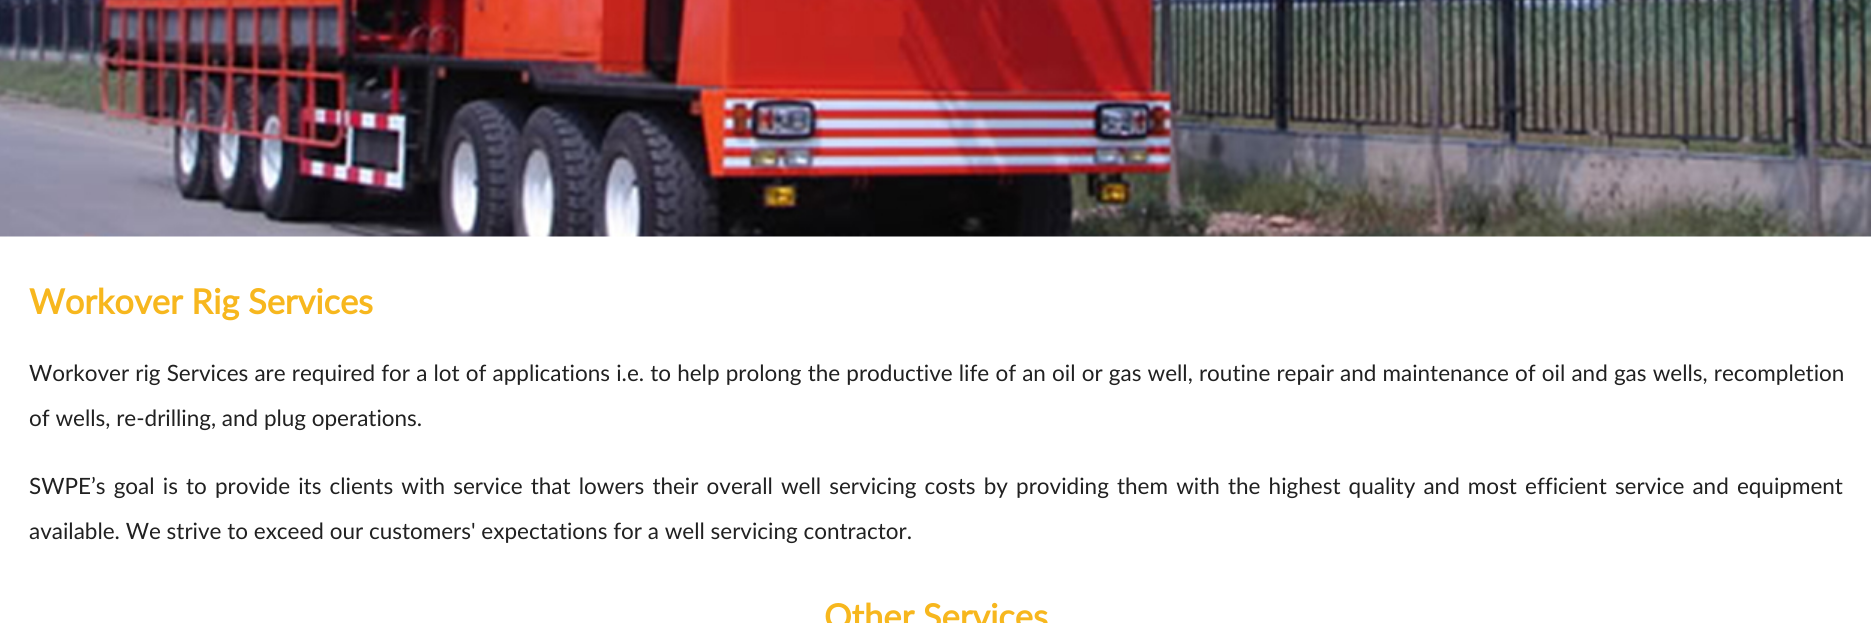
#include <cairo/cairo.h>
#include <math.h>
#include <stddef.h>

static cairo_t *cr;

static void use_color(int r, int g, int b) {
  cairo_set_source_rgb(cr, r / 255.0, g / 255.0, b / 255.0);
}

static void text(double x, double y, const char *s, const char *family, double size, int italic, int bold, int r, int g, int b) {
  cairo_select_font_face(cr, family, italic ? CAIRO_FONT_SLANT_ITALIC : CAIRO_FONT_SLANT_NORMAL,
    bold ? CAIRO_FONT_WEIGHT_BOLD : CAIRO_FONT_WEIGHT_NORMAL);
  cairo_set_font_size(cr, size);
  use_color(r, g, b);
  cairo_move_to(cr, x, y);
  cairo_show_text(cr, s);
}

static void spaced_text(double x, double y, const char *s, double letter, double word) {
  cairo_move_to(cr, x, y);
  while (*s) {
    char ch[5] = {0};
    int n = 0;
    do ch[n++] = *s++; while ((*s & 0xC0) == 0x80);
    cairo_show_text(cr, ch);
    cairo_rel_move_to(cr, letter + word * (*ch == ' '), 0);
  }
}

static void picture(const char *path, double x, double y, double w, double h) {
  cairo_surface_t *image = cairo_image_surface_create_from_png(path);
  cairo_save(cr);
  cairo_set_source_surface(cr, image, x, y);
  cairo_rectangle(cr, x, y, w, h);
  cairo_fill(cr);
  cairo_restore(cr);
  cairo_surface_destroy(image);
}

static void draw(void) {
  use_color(255, 255, 255);
  cairo_paint(cr);
  picture("img_01.png", 0, 0, 1871, 237);
  text(29, 314, "Workover Rig Services", "Lato", 34.5, 0, 1, 247, 183, 30);
  cairo_select_font_face(cr, "Lato", CAIRO_FONT_SLANT_NORMAL, CAIRO_FONT_WEIGHT_NORMAL);
  cairo_set_font_size(cr, 22.5);
  use_color(33, 33, 33);
  spaced_text(29, 381, "Workover rig Services are required for a lot of applications i.e. to help prolong the productive life of an oil or gas well, routine repair and maintenance of oil and gas wells, recompletion", 0, 0.4);
  text(29, 426, "of wells, re-drilling, and plug operations.", "Lato", 22.5, 0, 0, 33, 33, 33);
  spaced_text(29, 494, "SWPE’s goal is to provide its clients with service that lowers their overall well servicing costs by providing them with the highest quality and most efficient service and equipment", 0, 2.4);
  text(29, 539, "available. We strive to exceed our customers' expectations for a well servicing contractor.", "Lato", 22.5, 0, 0, 33, 33, 33);
  text(824, 629, "Other Services", "Lato", 34.5, 0, 1, 247, 183, 30);
}

int main(void) {
  cairo_surface_t *surface = cairo_image_surface_create(CAIRO_FORMAT_RGB24, 1871, 623);
  cr = cairo_create(surface);
  cairo_font_options_t *options = cairo_font_options_create();
  cairo_font_options_set_hint_metrics(options, CAIRO_HINT_METRICS_OFF);
  cairo_font_options_set_hint_style(options, CAIRO_HINT_STYLE_NONE);
  cairo_set_font_options(cr, options);
  cairo_set_miter_limit(cr, 4);
  draw();
  cairo_surface_write_to_png(surface, "out.png");
  cairo_font_options_destroy(options);
  cairo_destroy(cr);
  cairo_surface_destroy(surface);
  return 0;
}
